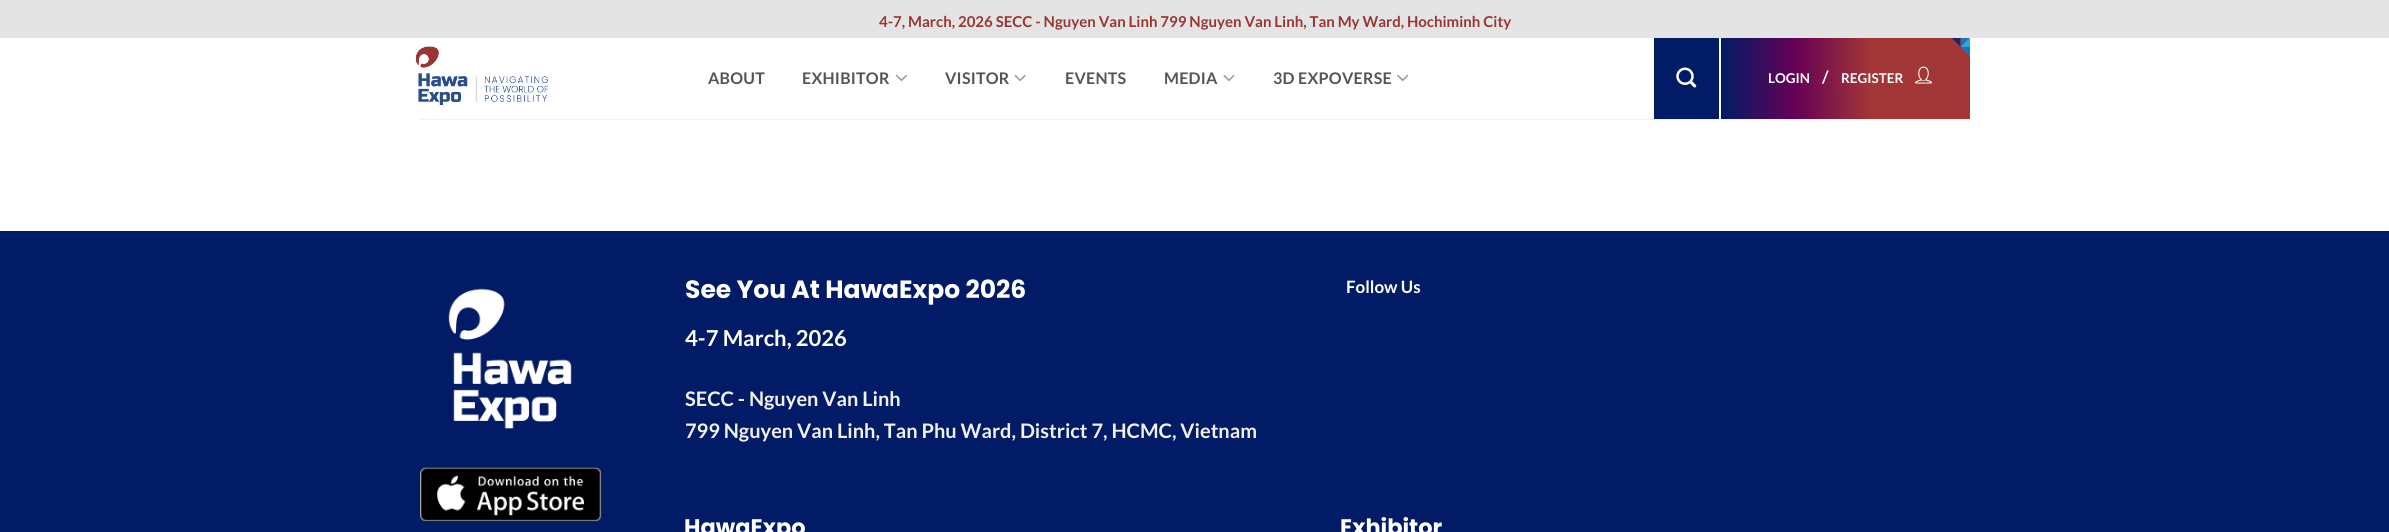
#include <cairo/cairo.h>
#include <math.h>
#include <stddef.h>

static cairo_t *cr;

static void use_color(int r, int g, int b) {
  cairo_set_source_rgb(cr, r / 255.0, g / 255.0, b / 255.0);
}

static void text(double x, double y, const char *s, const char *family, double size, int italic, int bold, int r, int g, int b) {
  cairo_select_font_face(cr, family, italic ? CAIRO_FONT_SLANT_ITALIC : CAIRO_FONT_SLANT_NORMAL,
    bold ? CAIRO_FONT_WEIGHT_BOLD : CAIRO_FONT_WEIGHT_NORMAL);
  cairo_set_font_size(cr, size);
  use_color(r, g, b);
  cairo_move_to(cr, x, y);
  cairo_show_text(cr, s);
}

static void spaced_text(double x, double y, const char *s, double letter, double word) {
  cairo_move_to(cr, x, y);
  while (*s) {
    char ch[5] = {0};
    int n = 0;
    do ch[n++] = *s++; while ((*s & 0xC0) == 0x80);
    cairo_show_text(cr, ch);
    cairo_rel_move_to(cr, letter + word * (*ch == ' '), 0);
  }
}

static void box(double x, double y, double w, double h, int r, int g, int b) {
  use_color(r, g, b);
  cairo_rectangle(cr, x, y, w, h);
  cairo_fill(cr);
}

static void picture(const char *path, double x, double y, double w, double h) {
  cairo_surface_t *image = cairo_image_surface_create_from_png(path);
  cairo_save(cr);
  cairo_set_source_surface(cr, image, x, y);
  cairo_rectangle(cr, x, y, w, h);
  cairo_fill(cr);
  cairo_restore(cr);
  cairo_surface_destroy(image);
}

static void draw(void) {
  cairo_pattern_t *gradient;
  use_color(255, 255, 255);
  cairo_paint(cr);
  box(0, 0, 2389, 38, 228, 228, 228);
  picture("img_01.png", 415, 46, 134, 60);
  picture("img_02.png", 895, 74, 12, 8);
  picture("img_03.png", 1014, 74, 12, 8);
  picture("img_04.png", 1223, 74, 12, 8);
  picture("img_05.png", 1397, 74, 12, 8);
  box(1654, 38, 65, 81, 1, 27, 102);
  picture("img_06.png", 1676, 67, 21, 21);
  gradient = cairo_pattern_create_linear(1721, 78, 1970, 77);
  cairo_pattern_add_color_stop_rgba(gradient, 0, 0.004, 0.106, 0.4, 1);
  cairo_pattern_add_color_stop_rgba(gradient, 0.3, 0.4, 0.004, 0.333, 1);
  cairo_pattern_add_color_stop_rgba(gradient, 0.6, 0.635, 0.212, 0.212, 1);
  cairo_set_source(cr, gradient);
  cairo_pattern_destroy(gradient);
  cairo_rectangle(cr, 1721, 38, 249, 81);
  cairo_fill(cr);
  picture("img_07.png", 1952, 38, 18, 18);
  picture("img_08.png", 1915, 66, 17, 18);
  box(420, 119, 1550, 1, 241, 241, 241);
  box(0, 231, 2389, 301, 1, 27, 102);
  picture("img_09.png", 448, 288, 124, 141);
  picture("img_10.png", 420, 467, 182, 55);
  text(879, 27, "4-7, March, 2026 SECC - Nguyen Van Linh 799 Nguyen Van Linh, Tan My Ward, Hochiminh City", "Lato", 15, 0, 1, 154, 53, 54);
  cairo_set_font_size(cr, 16);
  use_color(85, 85, 85);
  spaced_text(708, 84, "ABOUT", 0.25, 0);
  spaced_text(802, 84, "EXHIBITOR", 0.25, 0);
  spaced_text(945, 84, "VISITOR", 0.25, 0);
  spaced_text(1065, 84, "EVENTS", 0.25, 0);
  spaced_text(1164, 84, "MEDIA", 0.25, 0);
  spaced_text(1273, 84, "3D EXPOVERSE", 0.25, 0);
  text(1768, 83, "LOGIN", "Lato", 13.5, 0, 1, 255, 255, 255);
  text(1822, 83, "/", "Lato", 17, 0, 1, 255, 255, 255);
  text(1841, 83, "REGISTER", "Lato", 13.5, 0, 1, 255, 255, 255);
  text(685, 298, "See You At HawaExpo 2026", "Poppins", 25, 0, 1, 255, 255, 255);
  text(685, 346, "4-7 March, 2026", "Lato", 22, 0, 1, 255, 255, 255);
  text(685, 406, "SECC - Nguyen Van Linh", "Lato", 20, 0, 1, 241, 241, 241);
  text(685, 438, "799 Nguyen Van Linh, Tan Phu Ward, District 7, HCMC, Vietnam", "Lato", 20, 0, 1, 241, 241, 241);
  text(1346, 293, "Follow Us", "Lato", 17, 0, 1, 255, 255, 255);
  text(684, 535, "HawaExpo", "Poppins", 22.5, 0, 1, 255, 255, 255);
  text(1340, 535, "Exhibitor", "Poppins", 22.5, 0, 1, 255, 255, 255);
}

int main(void) {
  cairo_surface_t *surface = cairo_image_surface_create(CAIRO_FORMAT_RGB24, 2389, 532);
  cr = cairo_create(surface);
  cairo_font_options_t *options = cairo_font_options_create();
  cairo_font_options_set_hint_metrics(options, CAIRO_HINT_METRICS_OFF);
  cairo_font_options_set_hint_style(options, CAIRO_HINT_STYLE_NONE);
  cairo_set_font_options(cr, options);
  cairo_set_miter_limit(cr, 4);
  draw();
  cairo_surface_write_to_png(surface, "out.png");
  cairo_font_options_destroy(options);
  cairo_destroy(cr);
  cairo_surface_destroy(surface);
  return 0;
}
